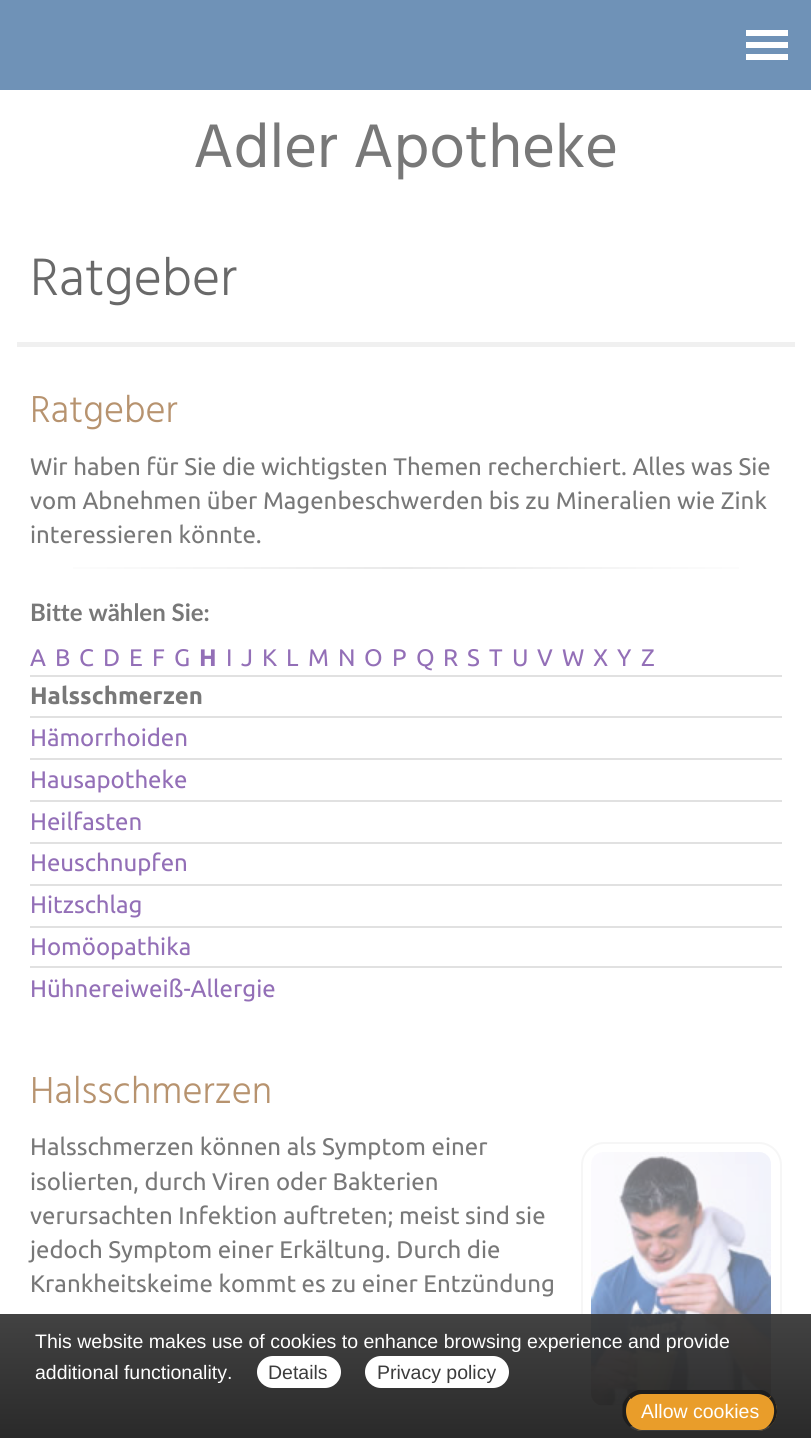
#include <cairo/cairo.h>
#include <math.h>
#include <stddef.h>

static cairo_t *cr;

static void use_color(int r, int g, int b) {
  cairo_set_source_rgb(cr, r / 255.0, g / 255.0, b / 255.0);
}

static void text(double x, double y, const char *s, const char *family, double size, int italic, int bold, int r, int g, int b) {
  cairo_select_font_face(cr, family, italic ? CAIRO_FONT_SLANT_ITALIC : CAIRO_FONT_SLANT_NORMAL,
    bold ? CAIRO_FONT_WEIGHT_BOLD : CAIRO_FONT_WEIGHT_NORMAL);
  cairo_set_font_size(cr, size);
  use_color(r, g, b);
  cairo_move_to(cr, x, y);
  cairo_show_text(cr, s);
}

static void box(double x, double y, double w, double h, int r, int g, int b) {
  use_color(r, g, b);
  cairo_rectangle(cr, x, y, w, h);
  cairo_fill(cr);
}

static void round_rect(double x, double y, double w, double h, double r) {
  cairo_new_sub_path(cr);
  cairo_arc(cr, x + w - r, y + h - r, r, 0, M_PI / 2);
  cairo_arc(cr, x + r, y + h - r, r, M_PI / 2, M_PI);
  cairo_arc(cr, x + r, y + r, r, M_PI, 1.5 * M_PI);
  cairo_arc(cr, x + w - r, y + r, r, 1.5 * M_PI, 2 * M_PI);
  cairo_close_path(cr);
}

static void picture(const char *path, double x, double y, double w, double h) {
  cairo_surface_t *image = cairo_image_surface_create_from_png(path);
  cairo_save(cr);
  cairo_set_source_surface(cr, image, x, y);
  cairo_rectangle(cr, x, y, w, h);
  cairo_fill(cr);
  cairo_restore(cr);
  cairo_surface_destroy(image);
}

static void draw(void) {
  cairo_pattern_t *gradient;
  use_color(255, 255, 255);
  cairo_paint(cr);
  box(0, 0, 811, 90, 111, 146, 183);
  box(746, 30, 42, 6, 255, 255, 255);
  box(746, 42, 42, 6, 255, 255, 255);
  box(746, 54, 42, 6, 255, 255, 255);
  box(17, 342, 778, 5, 240, 240, 240);
  gradient = cairo_pattern_create_linear(30, 568, 782, 568);
  cairo_pattern_add_color_stop_rgba(gradient, 0, 1, 1, 1, 1);
  cairo_pattern_add_color_stop_rgba(gradient, 0.5, 0.914, 0.914, 0.914, 1);
  cairo_pattern_add_color_stop_rgba(gradient, 1, 1, 1, 1, 1);
  cairo_set_source(cr, gradient);
  cairo_pattern_destroy(gradient);
  cairo_rectangle(cr, 73, 567, 666, 2);
  cairo_fill(cr);
  box(30, 675, 752, 2, 225, 225, 225);
  box(30, 716, 752, 2, 225, 225, 225);
  box(30, 758, 752, 2, 225, 225, 225);
  box(30, 800, 752, 2, 225, 225, 225);
  box(30, 842, 752, 2, 225, 225, 225);
  box(30, 884, 752, 2, 225, 225, 225);
  box(30, 926, 752, 2, 225, 225, 225);
  box(30, 966, 752, 2, 225, 225, 225);
  cairo_new_path(cr);
  cairo_move_to(cr, 604, 1143);
  cairo_line_to(cr, 759, 1143);
  cairo_curve_to(cr, 771, 1143, 781, 1153, 781, 1165);
  cairo_line_to(cr, 781, 1415);
  cairo_line_to(cr, 604, 1415);
  cairo_curve_to(cr, 592, 1415, 582, 1405, 582, 1393);
  cairo_line_to(cr, 582, 1165);
  cairo_curve_to(cr, 582, 1153, 592, 1143, 604, 1143);
  cairo_close_path(cr);
  use_color(246, 246, 246);
  cairo_stroke(cr);
  picture("img_01.png", 591, 1152, 180, 254);
  gradient = cairo_pattern_create_linear(406, 1314, 406, 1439);
  cairo_pattern_add_color_stop_rgba(gradient, 0, 0.22, 0.22, 0.22, 0.95);
  cairo_pattern_add_color_stop_rgba(gradient, 1, 0.118, 0.118, 0.118, 0.95);
  cairo_set_source(cr, gradient);
  cairo_pattern_destroy(gradient);
  cairo_rectangle(cr, 0, 1314, 811, 124);
  cairo_fill(cr);
  use_color(255, 255, 255);
  round_rect(257, 1356, 84, 32, 16);
  cairo_fill(cr);
  round_rect(365, 1356, 144, 32, 16);
  cairo_fill(cr);
  use_color(233, 157, 42);
  round_rect(623, 1391, 154, 40, 20);
  cairo_fill(cr);
  use_color(30, 30, 30);
  cairo_new_path(cr);
  cairo_move_to(cr, 642, 1394);
  cairo_curve_to(cr, 638, 1394, 634, 1396, 631, 1399);
  cairo_line_to(cr, 628, 1396);
  cairo_curve_to(cr, 630, 1393, 634, 1391, 638, 1390);
  cairo_line_to(cr, 762, 1390);
  cairo_curve_to(cr, 766, 1391, 769, 1393, 771, 1396);
  cairo_line_to(cr, 769, 1398);
  cairo_curve_to(cr, 766, 1396, 762, 1394, 758, 1394);
  cairo_close_path(cr);
  cairo_fill(cr);
  cairo_new_path(cr);
  cairo_move_to(cr, 777, 1412);
  cairo_curve_to(cr, 777, 1406, 775.5, 1400.5, 771.5, 1396);
  cairo_line_to(cr, 769, 1398.5);
  cairo_curve_to(cr, 777, 1405.5, 775, 1419.5, 767.5, 1426.5);
  cairo_line_to(cr, 769, 1427);
  cairo_curve_to(cr, 774, 1423.5, 777, 1418, 777, 1412);
  cairo_close_path(cr);
  cairo_fill(cr);
  use_color(60, 60, 60);
  cairo_new_path(cr);
  cairo_move_to(cr, 642, 1431);
  cairo_line_to(cr, 758, 1431);
  cairo_curve_to(cr, 762, 1431, 766, 1430, 769, 1427);
  cairo_line_to(cr, 768, 1426);
  cairo_curve_to(cr, 765, 1429, 762, 1430, 758, 1430);
  cairo_line_to(cr, 642, 1430);
  cairo_curve_to(cr, 638, 1430, 635, 1428, 632, 1426);
  cairo_line_to(cr, 630, 1427);
  cairo_curve_to(cr, 633, 1430, 638, 1431, 642, 1431);
  cairo_close_path(cr);
  cairo_fill(cr);
  use_color(30, 30, 30);
  cairo_new_path(cr);
  cairo_move_to(cr, 622.5, 1405.5);
  cairo_curve_to(cr, 623.5, 1402, 625.5, 1398.5, 628, 1396);
  cairo_line_to(cr, 630.5, 1398.5);
  cairo_curve_to(cr, 623.5, 1406, 625, 1419.5, 632.5, 1426);
  cairo_line_to(cr, 630, 1427);
  cairo_curve_to(cr, 626.5, 1424.5, 623.5, 1420.5, 622.5, 1416);
  cairo_close_path(cr);
  cairo_fill(cr);
  text(193, 167, "Adler Apotheke", "Hind", 63, 0, 0, 120, 120, 120);
  text(30, 295, "Ratgeber", "Hind Light", 54, 0, 0, 105, 105, 105);
  text(30, 422, "Ratgeber", "Hind Light", 38.5, 0, 0, 183, 147, 111);
  text(30, 475, "Wir haben für Sie die wichtigsten Themen recherchiert. Alles was Sie", "Ubuntu", 24, 0, 0, 120, 120, 120);
  text(30, 509, "vom Abnehmen über Magenbeschwerden bis zu Mineralien wie Zink", "Ubuntu", 24, 0, 0, 120, 120, 120);
  text(30, 543, "interessieren könnte.", "Ubuntu", 24, 0, 0, 120, 120, 120);
  text(30, 621, "Bitte wählen Sie:", "Lato", 24, 0, 1, 120, 120, 120);
  text(30, 666, "A", "Ubuntu", 24, 0, 0, 147, 111, 183);
  text(55, 666, "B", "Ubuntu", 24, 0, 0, 147, 111, 183);
  text(79, 666, "C", "Ubuntu", 24, 0, 0, 147, 111, 183);
  text(103, 666, "D", "Ubuntu", 24, 0, 0, 147, 111, 183);
  text(129, 666, "E", "Ubuntu", 24, 0, 0, 147, 111, 183);
  text(152, 666, "F", "Ubuntu", 24, 0, 0, 147, 111, 183);
  text(174, 666, "G", "Ubuntu", 24, 0, 0, 147, 111, 183);
  text(199, 666, "H", "Ubuntu", 24, 0, 1, 147, 111, 183);
  text(226, 666, "I", "Ubuntu", 24, 0, 0, 147, 111, 183);
  text(241, 666, "J", "Ubuntu", 24, 0, 0, 147, 111, 183);
  text(262, 666, "K", "Ubuntu", 24, 0, 0, 147, 111, 183);
  text(286, 666, "L", "Ubuntu", 24, 0, 0, 147, 111, 183);
  text(308, 666, "M", "Ubuntu", 24, 0, 0, 147, 111, 183);
  text(338, 666, "N", "Ubuntu", 24, 0, 0, 147, 111, 183);
  text(364, 666, "O", "Ubuntu", 24, 0, 0, 147, 111, 183);
  text(392, 666, "P", "Ubuntu", 24, 0, 0, 147, 111, 183);
  text(416, 666, "Q", "Ubuntu", 24, 0, 0, 147, 111, 183);
  text(443, 666, "R", "Ubuntu", 24, 0, 0, 147, 111, 183);
  text(467, 666, "S", "Ubuntu", 24, 0, 0, 147, 111, 183);
  text(489, 666, "T", "Ubuntu", 24, 0, 0, 147, 111, 183);
  text(512, 666, "U", "Ubuntu", 24, 0, 0, 147, 111, 183);
  text(537, 666, "V", "Ubuntu", 24, 0, 0, 147, 111, 183);
  text(562, 666, "W", "Ubuntu", 24, 0, 0, 147, 111, 183);
  text(593, 666, "X", "Ubuntu", 24, 0, 0, 147, 111, 183);
  text(617, 666, "Y", "Ubuntu", 24, 0, 0, 147, 111, 183);
  text(641, 666, "Z", "Ubuntu", 24, 0, 0, 147, 111, 183);
  text(30, 704, "Halsschmerzen", "Ubuntu", 24, 0, 1, 120, 120, 120);
  text(30, 746, "Hämorrhoiden", "Ubuntu", 24, 0, 0, 147, 111, 183);
  text(30, 788, "Hausapotheke", "Ubuntu", 24, 0, 0, 147, 111, 183);
  text(30, 830, "Heilfasten", "Ubuntu", 24, 0, 0, 147, 111, 183);
  text(30, 871, "Heuschnupfen", "Ubuntu", 24, 0, 0, 147, 111, 183);
  text(30, 913, "Hitzschlag", "Ubuntu", 24, 0, 0, 147, 111, 183);
  text(30, 955, "Homöopathika", "Ubuntu", 24, 0, 0, 147, 111, 183);
  text(30, 997, "Hühnereiweiß-Allergie", "Ubuntu", 24, 0, 0, 147, 111, 183);
  text(30, 1103, "Halsschmerzen", "Hind Light", 38.5, 0, 0, 183, 147, 111);
  text(30, 1155, "Halsschmerzen können als Symptom einer", "Ubuntu", 24, 0, 0, 120, 120, 120);
  text(30, 1190, "isolierten, durch Viren oder Bakterien", "Ubuntu", 24, 0, 0, 120, 120, 120);
  text(30, 1224, "verursachten Infektion auftreten; meist sind sie", "Ubuntu", 24, 0, 0, 120, 120, 120);
  text(30, 1258, "jedoch Symptom einer Erkältung. Durch die", "Ubuntu", 24, 0, 0, 120, 120, 120);
  text(30, 1292, "Krankheitskeime kommt es zu einer Entzündung", "Ubuntu", 24, 0, 0, 120, 120, 120);
  text(35, 1348, "This website makes use of cookies to enhance browsing experience and provide", "Liberation Sans", 19.5, 0, 0, 255, 255, 255);
  text(35, 1379, "additional functionality.", "Liberation Sans", 19.5, 0, 0, 255, 255, 255);
  text(268, 1379, "Details", "Liberation Sans", 19.5, 0, 0, 60, 60, 60);
  text(377, 1379, "Privacy policy", "Liberation Sans", 19.5, 0, 0, 60, 60, 60);
  text(641, 1418, "Allow cookies", "Liberation Sans", 19.5, 0, 0, 255, 255, 255);
}

int main(void) {
  cairo_surface_t *surface = cairo_image_surface_create(CAIRO_FORMAT_RGB24, 811, 1438);
  cr = cairo_create(surface);
  cairo_font_options_t *options = cairo_font_options_create();
  cairo_font_options_set_hint_metrics(options, CAIRO_HINT_METRICS_OFF);
  cairo_font_options_set_hint_style(options, CAIRO_HINT_STYLE_NONE);
  cairo_set_font_options(cr, options);
  cairo_set_miter_limit(cr, 4);
  draw();
  cairo_surface_write_to_png(surface, "out.png");
  cairo_font_options_destroy(options);
  cairo_destroy(cr);
  cairo_surface_destroy(surface);
  return 0;
}
